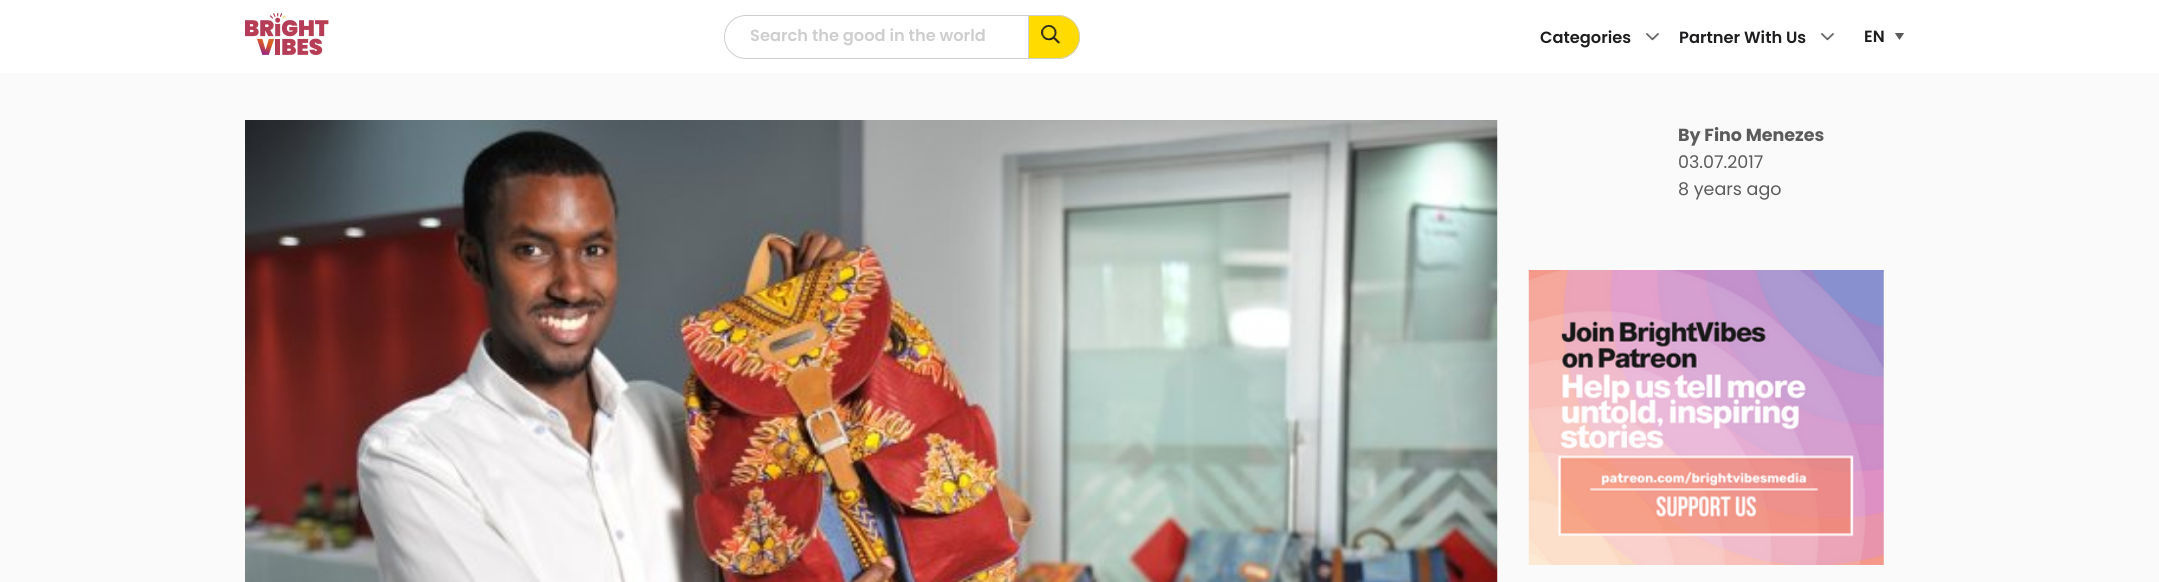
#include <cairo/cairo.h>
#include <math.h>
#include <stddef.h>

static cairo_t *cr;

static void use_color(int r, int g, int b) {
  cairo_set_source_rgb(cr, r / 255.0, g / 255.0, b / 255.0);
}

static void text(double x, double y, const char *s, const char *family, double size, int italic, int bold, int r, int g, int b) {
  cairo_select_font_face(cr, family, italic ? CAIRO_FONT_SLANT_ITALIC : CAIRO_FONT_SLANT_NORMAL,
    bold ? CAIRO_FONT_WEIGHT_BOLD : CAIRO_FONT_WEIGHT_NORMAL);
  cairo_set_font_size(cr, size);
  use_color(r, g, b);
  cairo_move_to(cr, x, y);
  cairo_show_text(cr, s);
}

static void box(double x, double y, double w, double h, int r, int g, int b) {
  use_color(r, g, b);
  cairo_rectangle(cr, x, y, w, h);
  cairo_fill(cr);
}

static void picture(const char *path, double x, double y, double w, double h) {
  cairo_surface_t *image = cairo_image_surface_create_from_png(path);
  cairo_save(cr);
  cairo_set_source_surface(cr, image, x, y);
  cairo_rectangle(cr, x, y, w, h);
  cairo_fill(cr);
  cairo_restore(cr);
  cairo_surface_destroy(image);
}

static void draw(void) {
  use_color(250, 250, 250);
  cairo_paint(cr);
  box(0, 0, 2159, 73, 255, 255, 255);
  picture("img_01.png", 245, 13, 84, 42);
  cairo_new_path(cr);
  cairo_move_to(cr, 746, 15.5);
  cairo_line_to(cr, 1028.5, 15.5);
  cairo_line_to(cr, 1028.5, 58.5);
  cairo_line_to(cr, 746, 58.5);
  cairo_curve_to(cr, 734, 58.5, 724.5, 49, 724.5, 37);
  cairo_curve_to(cr, 724.5, 25, 734, 15.5, 746, 15.5);
  cairo_close_path(cr);
  use_color(206, 206, 206);
  cairo_set_line_width(cr, 1);
  cairo_stroke(cr);
  use_color(255, 219, 0);
  cairo_new_path(cr);
  cairo_move_to(cr, 1029, 15);
  cairo_line_to(cr, 1058, 15);
  cairo_curve_to(cr, 1070, 15, 1080, 25, 1080, 37);
  cairo_curve_to(cr, 1080, 49, 1070, 59, 1058, 59);
  cairo_line_to(cr, 1029, 59);
  cairo_close_path(cr);
  cairo_fill(cr);
  use_color(206, 206, 206);
  cairo_set_fill_rule(cr, CAIRO_FILL_RULE_EVEN_ODD);
  cairo_new_path(cr);
  cairo_move_to(cr, 1029, 15);
  cairo_line_to(cr, 1058, 15);
  cairo_curve_to(cr, 1070, 15, 1080, 25, 1080, 37);
  cairo_curve_to(cr, 1080, 49, 1070, 59, 1058, 59);
  cairo_line_to(cr, 1029, 59);
  cairo_close_path(cr);
  cairo_move_to(cr, 1029, 16);
  cairo_line_to(cr, 1058, 16);
  cairo_curve_to(cr, 1070, 16, 1079, 25, 1079, 37);
  cairo_curve_to(cr, 1079, 48, 1070, 58, 1058, 58);
  cairo_line_to(cr, 1029, 58);
  cairo_close_path(cr);
  cairo_fill(cr);
  picture("img_02.png", 1041, 25, 20, 19);
  picture("img_03.png", 1645, 33, 15, 8);
  picture("img_03.png", 1820, 33, 15, 8);
  cairo_save(cr);
  cairo_set_fill_rule(cr, CAIRO_FILL_RULE_WINDING);
  cairo_rectangle(cr, 1894, 33, 11, 7);
  cairo_clip(cr);
  use_color(91, 91, 91);
  cairo_new_path(cr);
  cairo_move_to(cr, 1894.5, 32.5);
  cairo_line_to(cr, 1904.5, 32.5);
  cairo_line_to(cr, 1899.5, 40);
  cairo_close_path(cr);
  cairo_fill(cr);
  cairo_restore(cr);
  box(1497, 120, 1, 462, 255, 255, 255);
  picture("img_04.png", 245, 120, 1253, 462);
  picture("img_05.png", 1528, 270, 356, 295);
  text(750, 41, "Search the good in the world", "Poppins SemiBold", 16.25, 0, 0, 206, 206, 206);
  text(1540, 43, "Categories", "Poppins SemiBold", 16.25, 0, 0, 29, 29, 31);
  text(1679, 43, "Partner With Us", "Poppins SemiBold", 16.25, 0, 0, 29, 29, 31);
  text(1864, 42, "EN", "Poppins SemiBold", 16.25, 0, 0, 29, 29, 31);
  text(1678, 141, "By Fino Menezes", "Poppins", 17.5, 0, 1, 91, 91, 91);
  text(1678, 168, "03.07.2017", "Poppins", 17.5, 0, 0, 91, 91, 91);
  text(1678, 195, "8 years ago", "Poppins", 17.5, 0, 0, 91, 91, 91);
}

int main(void) {
  cairo_surface_t *surface = cairo_image_surface_create(CAIRO_FORMAT_RGB24, 2159, 582);
  cr = cairo_create(surface);
  cairo_font_options_t *options = cairo_font_options_create();
  cairo_font_options_set_hint_metrics(options, CAIRO_HINT_METRICS_OFF);
  cairo_font_options_set_hint_style(options, CAIRO_HINT_STYLE_NONE);
  cairo_set_font_options(cr, options);
  cairo_set_miter_limit(cr, 4);
  draw();
  cairo_surface_write_to_png(surface, "out.png");
  cairo_font_options_destroy(options);
  cairo_destroy(cr);
  cairo_surface_destroy(surface);
  return 0;
}
